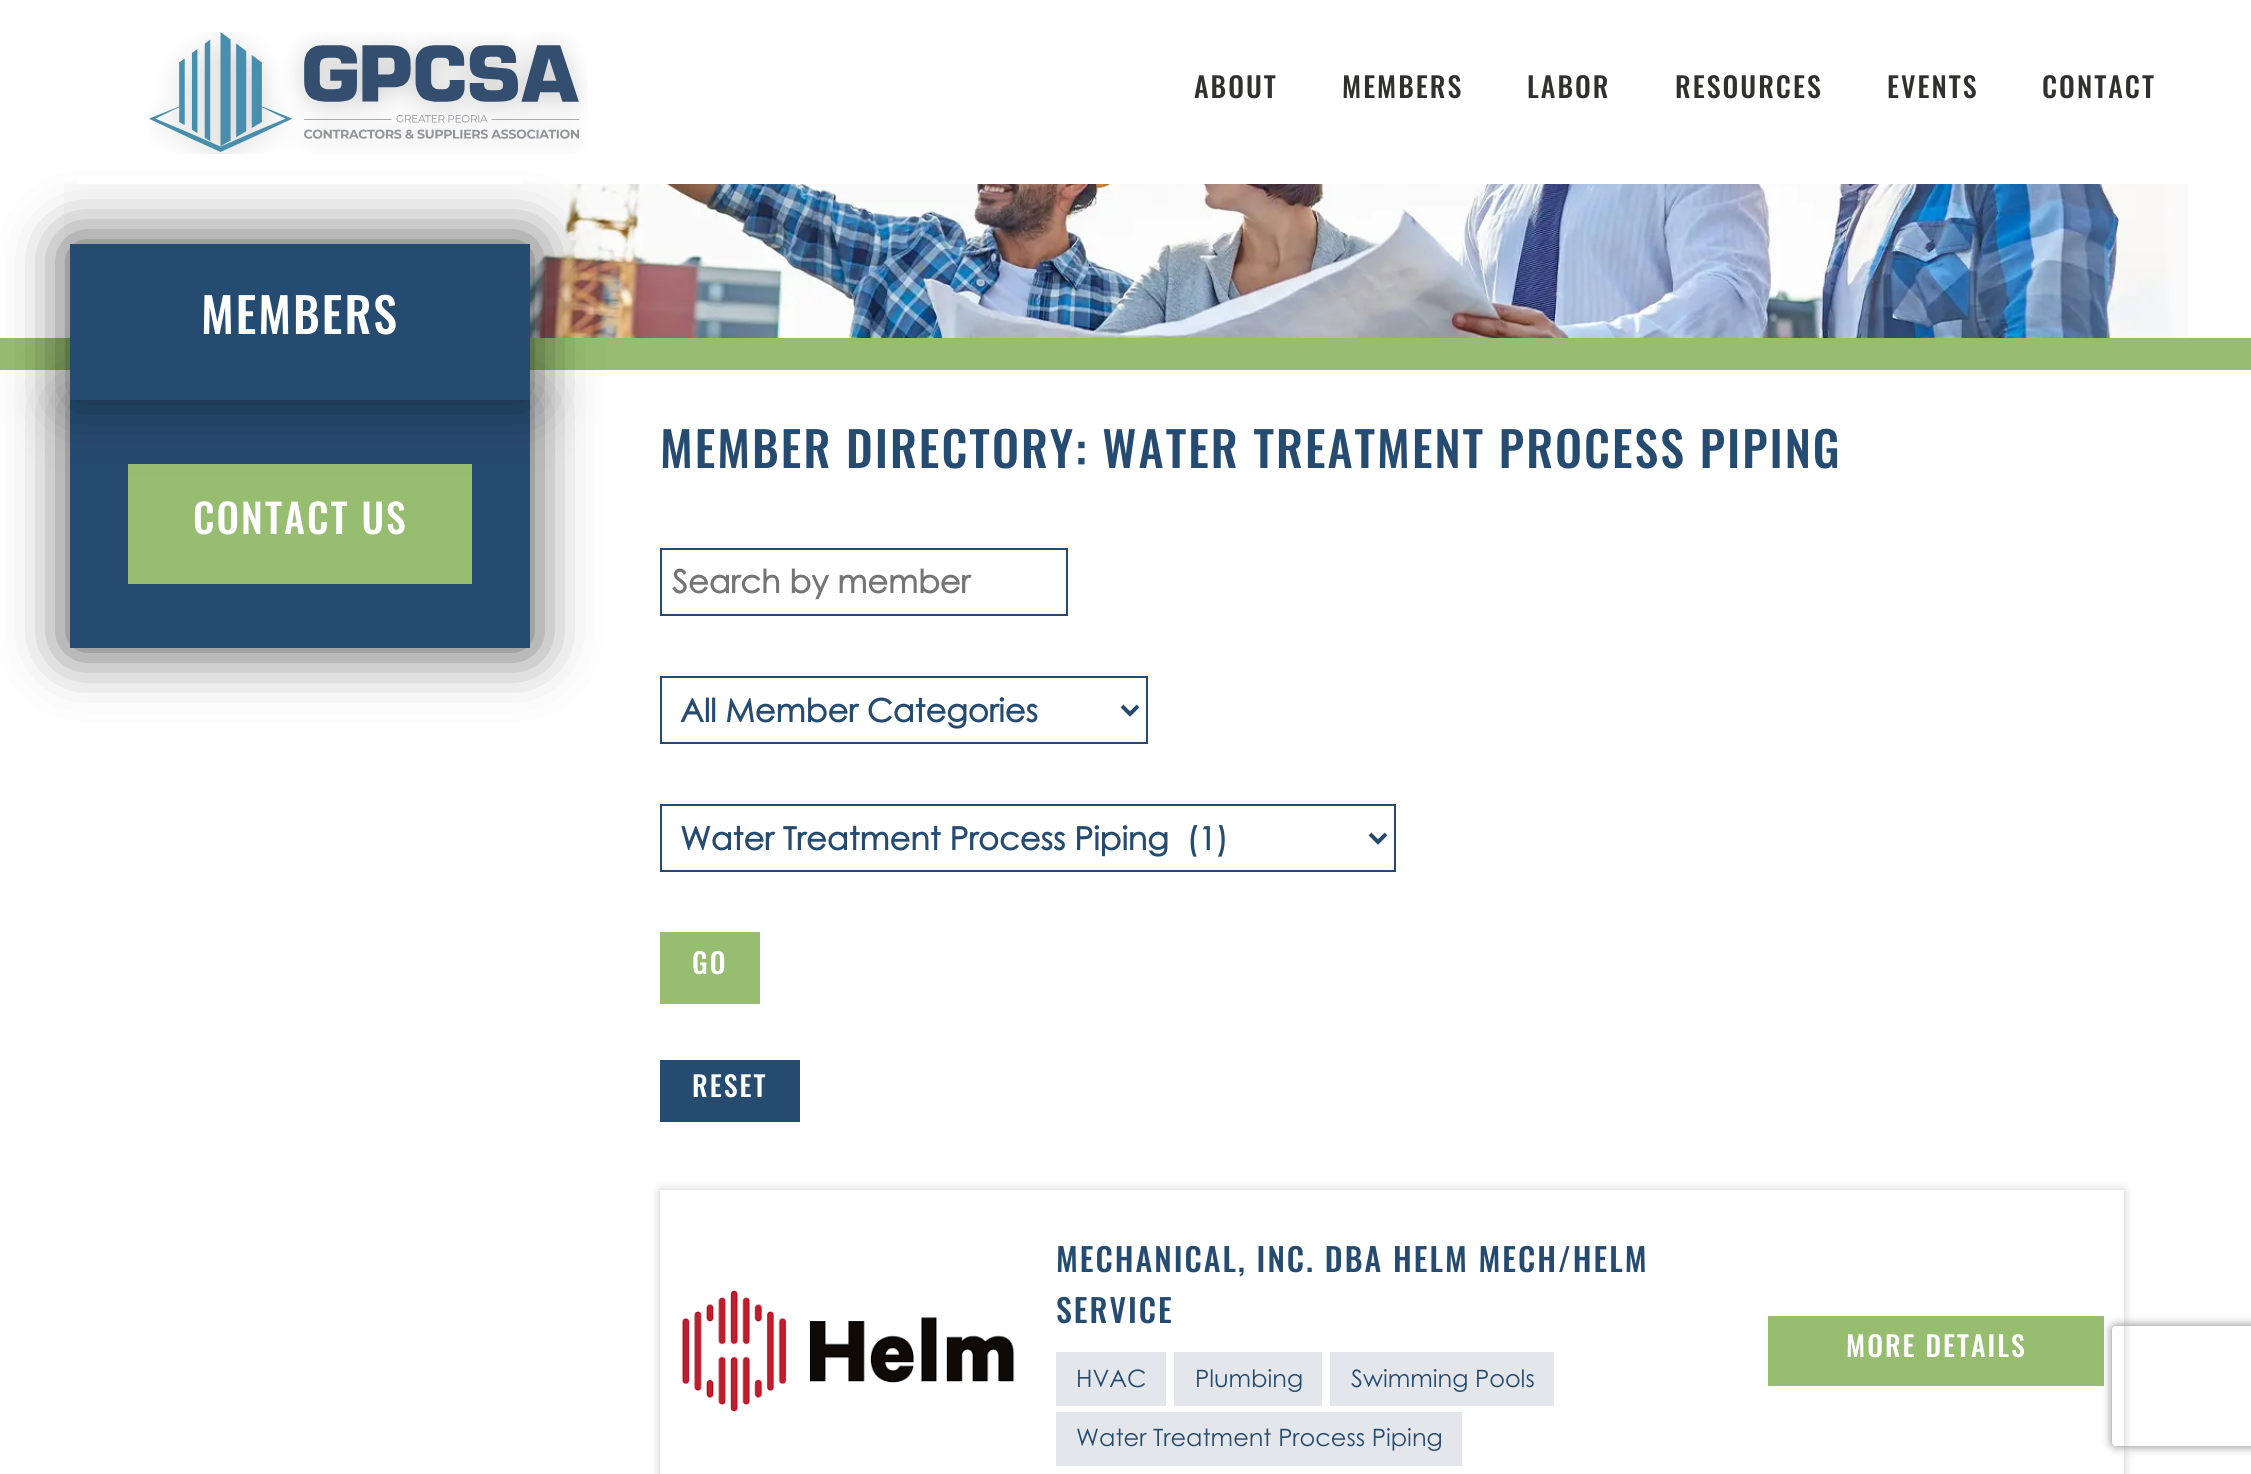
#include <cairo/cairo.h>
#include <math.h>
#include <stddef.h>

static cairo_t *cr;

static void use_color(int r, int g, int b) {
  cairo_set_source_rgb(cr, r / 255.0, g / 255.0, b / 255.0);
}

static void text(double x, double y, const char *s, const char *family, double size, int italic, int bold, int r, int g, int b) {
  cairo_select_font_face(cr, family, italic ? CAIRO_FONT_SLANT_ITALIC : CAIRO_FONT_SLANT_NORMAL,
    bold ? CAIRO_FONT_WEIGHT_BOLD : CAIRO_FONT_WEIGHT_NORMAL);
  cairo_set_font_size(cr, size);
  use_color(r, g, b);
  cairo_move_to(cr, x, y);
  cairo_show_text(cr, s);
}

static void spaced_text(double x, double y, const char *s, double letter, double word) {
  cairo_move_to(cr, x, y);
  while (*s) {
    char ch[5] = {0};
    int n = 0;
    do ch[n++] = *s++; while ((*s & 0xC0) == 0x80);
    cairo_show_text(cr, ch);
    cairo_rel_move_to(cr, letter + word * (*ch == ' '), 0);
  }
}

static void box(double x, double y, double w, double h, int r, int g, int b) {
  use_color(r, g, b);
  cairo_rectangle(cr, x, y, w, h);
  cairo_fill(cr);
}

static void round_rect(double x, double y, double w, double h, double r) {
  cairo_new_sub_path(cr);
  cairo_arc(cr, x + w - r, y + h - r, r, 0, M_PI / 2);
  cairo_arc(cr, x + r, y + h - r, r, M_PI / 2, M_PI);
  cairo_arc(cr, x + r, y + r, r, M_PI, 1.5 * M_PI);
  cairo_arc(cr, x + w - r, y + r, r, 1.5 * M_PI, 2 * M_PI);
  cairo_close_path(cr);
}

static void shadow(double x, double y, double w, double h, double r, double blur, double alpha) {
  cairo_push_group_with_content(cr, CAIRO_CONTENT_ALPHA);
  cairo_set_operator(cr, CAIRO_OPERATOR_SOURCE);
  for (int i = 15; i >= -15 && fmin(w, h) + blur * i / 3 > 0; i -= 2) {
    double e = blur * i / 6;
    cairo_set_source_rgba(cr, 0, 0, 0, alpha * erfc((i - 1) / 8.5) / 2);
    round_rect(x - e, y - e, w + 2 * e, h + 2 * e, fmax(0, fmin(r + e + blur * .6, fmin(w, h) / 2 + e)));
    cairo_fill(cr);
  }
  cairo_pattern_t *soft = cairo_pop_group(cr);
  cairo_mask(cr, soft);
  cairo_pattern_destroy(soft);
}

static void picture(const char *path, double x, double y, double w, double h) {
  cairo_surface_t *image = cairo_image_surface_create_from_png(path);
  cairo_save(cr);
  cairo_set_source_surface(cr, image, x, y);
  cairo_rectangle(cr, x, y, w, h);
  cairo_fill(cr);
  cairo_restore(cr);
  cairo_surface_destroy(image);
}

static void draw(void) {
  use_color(255, 255, 255);
  cairo_paint(cr);
  picture("img_02.png", 64, 184, 2124, 154);
  box(0, 338, 2251, 32, 151, 189, 112);
  use_color(0, 0, 0);
  shadow(70, 244, 460, 404, 0, 30, 0.4);
  shadow(70, 400, 460, 248, 0, 30, 0.4);
  box(70, 400, 460, 248, 38, 75, 112);
  box(128, 464, 344, 120, 151, 189, 112);
  use_color(0, 0, 0);
  shadow(70, 244, 460, 156, 0, 30, 0.4);
  box(77, 177, 446, 7, 255, 255, 255);
  picture("img_01.png", 149, 32, 439, 122);
  box(70, 244, 460, 156, 38, 75, 112);
  cairo_rectangle(cr, 661, 549, 406, 66);
  cairo_stroke(cr);
  cairo_rectangle(cr, 661, 677, 486, 66);
  cairo_stroke(cr);
  cairo_new_path(cr);
  cairo_move_to(cr, 1122, 706);
  cairo_line_to(cr, 1130, 714);
  cairo_line_to(cr, 1138, 706);
  cairo_set_line_width(cr, 4);
  cairo_stroke(cr);
  cairo_rectangle(cr, 661, 805, 734, 66);
  cairo_set_line_width(cr, 2);
  cairo_stroke(cr);
  cairo_new_path(cr);
  cairo_move_to(cr, 1370, 834);
  cairo_line_to(cr, 1378, 842);
  cairo_line_to(cr, 1386, 834);
  cairo_set_line_width(cr, 4);
  cairo_stroke(cr);
  box(660, 932, 100, 72, 151, 189, 112);
  box(660, 1060, 140, 62, 38, 75, 112);
  cairo_save(cr);
  cairo_set_fill_rule(cr, CAIRO_FILL_RULE_EVEN_ODD);
  cairo_new_path(cr);
  cairo_move_to(cr, 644, 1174);
  cairo_line_to(cr, 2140, 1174);
  cairo_line_to(cr, 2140, 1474);
  cairo_line_to(cr, 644, 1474);
  cairo_close_path(cr);
  cairo_move_to(cr, 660, 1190);
  cairo_line_to(cr, 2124, 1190);
  cairo_line_to(cr, 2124, 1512);
  cairo_line_to(cr, 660, 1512);
  cairo_close_path(cr);
  cairo_clip(cr);
  use_color(0, 0, 0);
  shadow(660, 1190, 1464, 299, 0, 5, 0.2);
  cairo_restore(cr);
  picture("img_03.png", 681, 1290, 334, 122);
  box(1056, 1352, 110, 54, 227, 231, 235);
  box(1174, 1352, 148, 54, 227, 231, 235);
  box(1330, 1352, 224, 54, 227, 231, 235);
  box(1056, 1412, 406, 54, 227, 231, 235);
  box(1768, 1316, 336, 70, 151, 189, 112);
  cairo_save(cr);
  cairo_set_fill_rule(cr, CAIRO_FILL_RULE_EVEN_ODD);
  cairo_new_path(cr);
  cairo_move_to(cr, 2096, 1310);
  cairo_line_to(cr, 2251, 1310);
  cairo_line_to(cr, 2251, 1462);
  cairo_line_to(cr, 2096, 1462);
  cairo_close_path(cr);
  cairo_move_to(cr, 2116, 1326);
  cairo_line_to(cr, 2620, 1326);
  cairo_curve_to(cr, 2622, 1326, 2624, 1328, 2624, 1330);
  cairo_line_to(cr, 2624, 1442);
  cairo_curve_to(cr, 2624, 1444, 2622, 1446, 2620, 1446);
  cairo_line_to(cr, 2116, 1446);
  cairo_curve_to(cr, 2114, 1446, 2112, 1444, 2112, 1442);
  cairo_line_to(cr, 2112, 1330);
  cairo_curve_to(cr, 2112, 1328, 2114, 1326, 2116, 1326);
  cairo_close_path(cr);
  cairo_clip(cr);
  use_color(128, 128, 128);
  shadow(2112, 1326, 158, 120, 4, 5, 1);
  cairo_restore(cr);
  cairo_select_font_face(cr, "Oswald Medium", CAIRO_FONT_SLANT_NORMAL, CAIRO_FONT_WEIGHT_NORMAL);
  cairo_set_font_size(cr, 28);
  use_color(48, 49, 47);
  spaced_text(1194, 98, "ABOUT", 2, 0);
  spaced_text(1342, 98, "MEMBERS", 2, 0);
  spaced_text(1527, 98, "LABOR", 2, 0);
  spaced_text(1675, 98, "RESOURCES", 2, 0);
  spaced_text(1887, 98, "EVENTS", 2, 0);
  spaced_text(2042, 98, "CONTACT", 2, 0);
  cairo_set_font_size(cr, 48);
  use_color(255, 255, 255);
  spaced_text(201, 334, "MEMBERS", 2, 0);
  cairo_set_font_size(cr, 40);
  spaced_text(193, 534, "CONTACT US", 2, 0);
  cairo_set_font_size(cr, 48);
  use_color(38, 75, 112);
  spaced_text(660, 468, "MEMBER DIRECTORY: WATER TREATMENT PROCESS PIPING", 2, 0);
  text(672, 593, "Search by member", "Century Gothic", 32, 0, 1, 117, 117, 117);
  text(680, 722, "All Member Categories", "Century Gothic", 32, 0, 1, 38, 75, 112);
  text(680, 850, "Water Treatment Process Piping  (1)", "Century Gothic", 32, 0, 1, 38, 75, 112);
  cairo_select_font_face(cr, "Oswald Medium", CAIRO_FONT_SLANT_NORMAL, CAIRO_FONT_WEIGHT_NORMAL);
  cairo_set_font_size(cr, 28);
  use_color(255, 255, 255);
  spaced_text(692, 974, "GO", 2, 0);
  spaced_text(692, 1097, "RESET", 2, 0);
  cairo_set_font_size(cr, 32);
  use_color(38, 75, 112);
  spaced_text(1056, 1272, "MECHANICAL, INC. DBA HELM MECH/HELM", 2, 0);
  spaced_text(1056, 1323, "SERVICE", 2, 0);
  text(1076, 1387, "HVAC", "Century Gothic", 24, 0, 0, 38, 75, 112);
  text(1195, 1387, "Plumbing", "Century Gothic", 24, 0, 0, 38, 75, 112);
  text(1351, 1387, "Swimming Pools", "Century Gothic", 24, 0, 0, 38, 75, 112);
  text(1076, 1446, "Water Treatment Process Piping", "Century Gothic", 24, 0, 0, 38, 75, 112);
  cairo_select_font_face(cr, "Oswald Medium", CAIRO_FONT_SLANT_NORMAL, CAIRO_FONT_WEIGHT_NORMAL);
  cairo_set_font_size(cr, 28);
  use_color(255, 255, 255);
  spaced_text(1846, 1357, "MORE DETAILS", 2, 0);
}

int main(void) {
  cairo_surface_t *surface = cairo_image_surface_create(CAIRO_FORMAT_RGB24, 2251, 1474);
  cr = cairo_create(surface);
  cairo_font_options_t *options = cairo_font_options_create();
  cairo_font_options_set_hint_metrics(options, CAIRO_HINT_METRICS_OFF);
  cairo_font_options_set_hint_style(options, CAIRO_HINT_STYLE_NONE);
  cairo_set_font_options(cr, options);
  cairo_set_miter_limit(cr, 4);
  draw();
  cairo_surface_write_to_png(surface, "out.png");
  cairo_font_options_destroy(options);
  cairo_destroy(cr);
  cairo_surface_destroy(surface);
  return 0;
}
